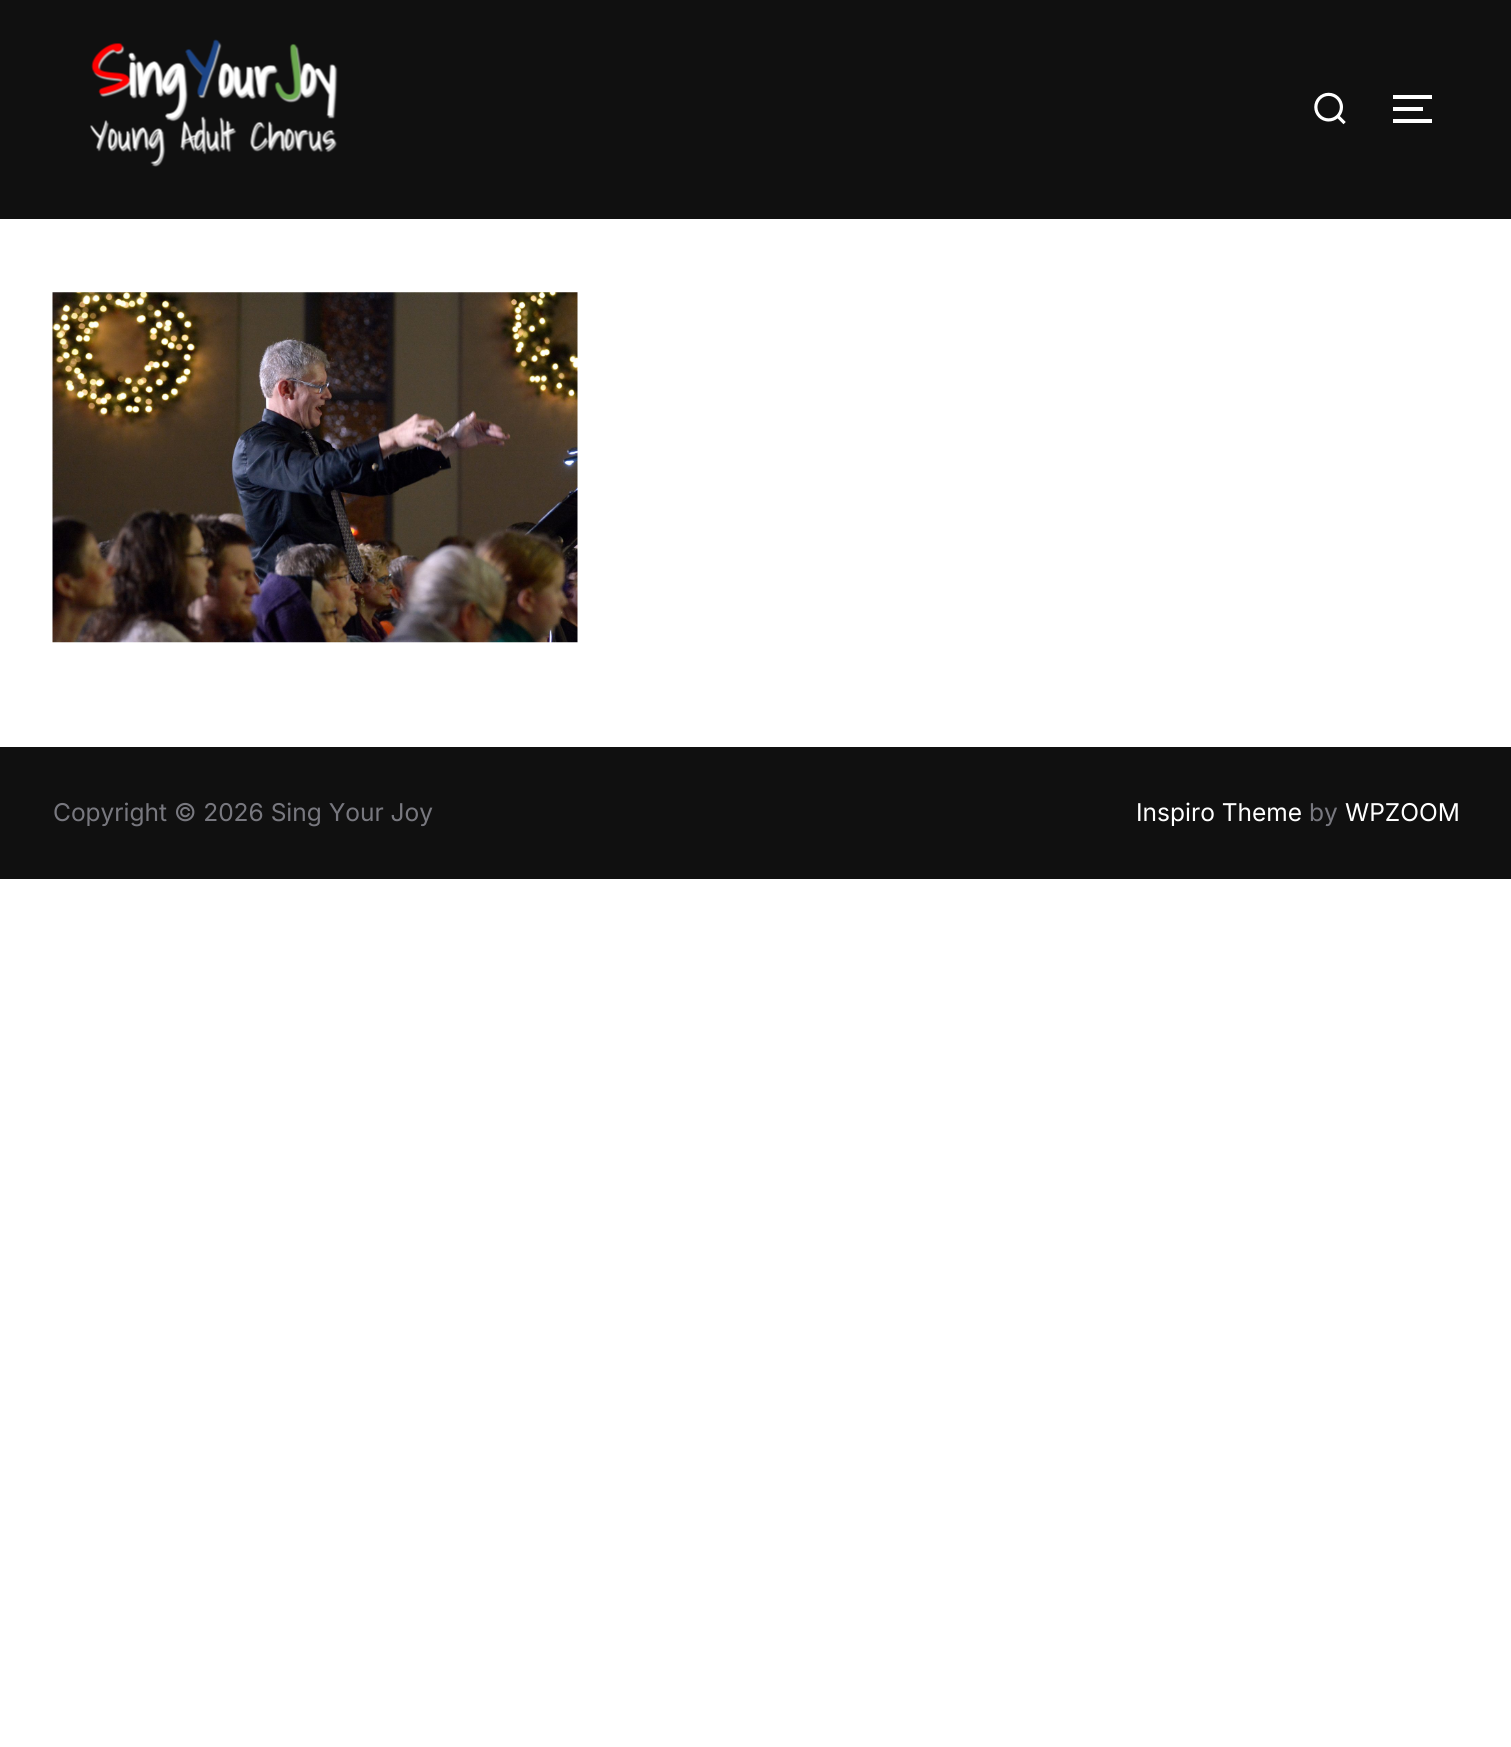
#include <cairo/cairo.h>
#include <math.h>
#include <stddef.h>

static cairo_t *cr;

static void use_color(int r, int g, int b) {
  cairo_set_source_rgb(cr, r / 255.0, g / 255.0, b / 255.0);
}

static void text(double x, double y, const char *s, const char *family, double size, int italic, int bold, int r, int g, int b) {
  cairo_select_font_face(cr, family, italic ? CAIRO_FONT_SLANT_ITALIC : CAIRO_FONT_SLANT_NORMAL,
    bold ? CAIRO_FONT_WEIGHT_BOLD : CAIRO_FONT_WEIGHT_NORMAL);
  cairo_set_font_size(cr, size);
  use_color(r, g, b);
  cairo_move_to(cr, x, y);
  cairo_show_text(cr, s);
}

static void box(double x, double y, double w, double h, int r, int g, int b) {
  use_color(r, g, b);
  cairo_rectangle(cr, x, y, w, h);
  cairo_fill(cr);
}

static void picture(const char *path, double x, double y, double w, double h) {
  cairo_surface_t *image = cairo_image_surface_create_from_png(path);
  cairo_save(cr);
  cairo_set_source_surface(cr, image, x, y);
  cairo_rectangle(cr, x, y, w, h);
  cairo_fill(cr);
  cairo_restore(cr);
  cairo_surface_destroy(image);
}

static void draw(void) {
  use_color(255, 255, 255);
  cairo_paint(cr);
  box(0, 0, 1511, 219, 16, 16, 16);
  picture("img_01.png", 90, 39, 248, 128);
  picture("img_02.png", 1314, 92, 32, 33);
  box(1393, 95, 39, 4, 255, 255, 255);
  box(1393, 107, 30, 4, 255, 255, 255);
  box(1393, 119, 39, 4, 255, 255, 255);
  picture("img_03.png", 52, 292, 526, 351);
  box(0, 747, 1511, 132, 16, 16, 16);
  text(53, 821, "Copyright © 2026 Sing Your Joy", "Inter", 24.5, 0, 0, 120, 120, 127);
  text(1136, 821, "Inspiro Theme", "Inter", 24.5, 0, 0, 255, 255, 255);
  text(1309, 821, "by", "Inter", 24.5, 0, 0, 120, 120, 127);
  text(1345, 821, "WPZOOM", "Inter", 24.5, 0, 0, 255, 255, 255);
}

int main(void) {
  cairo_surface_t *surface = cairo_image_surface_create(CAIRO_FORMAT_RGB24, 1511, 1747);
  cr = cairo_create(surface);
  cairo_font_options_t *options = cairo_font_options_create();
  cairo_font_options_set_hint_metrics(options, CAIRO_HINT_METRICS_OFF);
  cairo_font_options_set_hint_style(options, CAIRO_HINT_STYLE_NONE);
  cairo_set_font_options(cr, options);
  cairo_set_miter_limit(cr, 4);
  draw();
  cairo_surface_write_to_png(surface, "out.png");
  cairo_font_options_destroy(options);
  cairo_destroy(cr);
  cairo_surface_destroy(surface);
  return 0;
}
